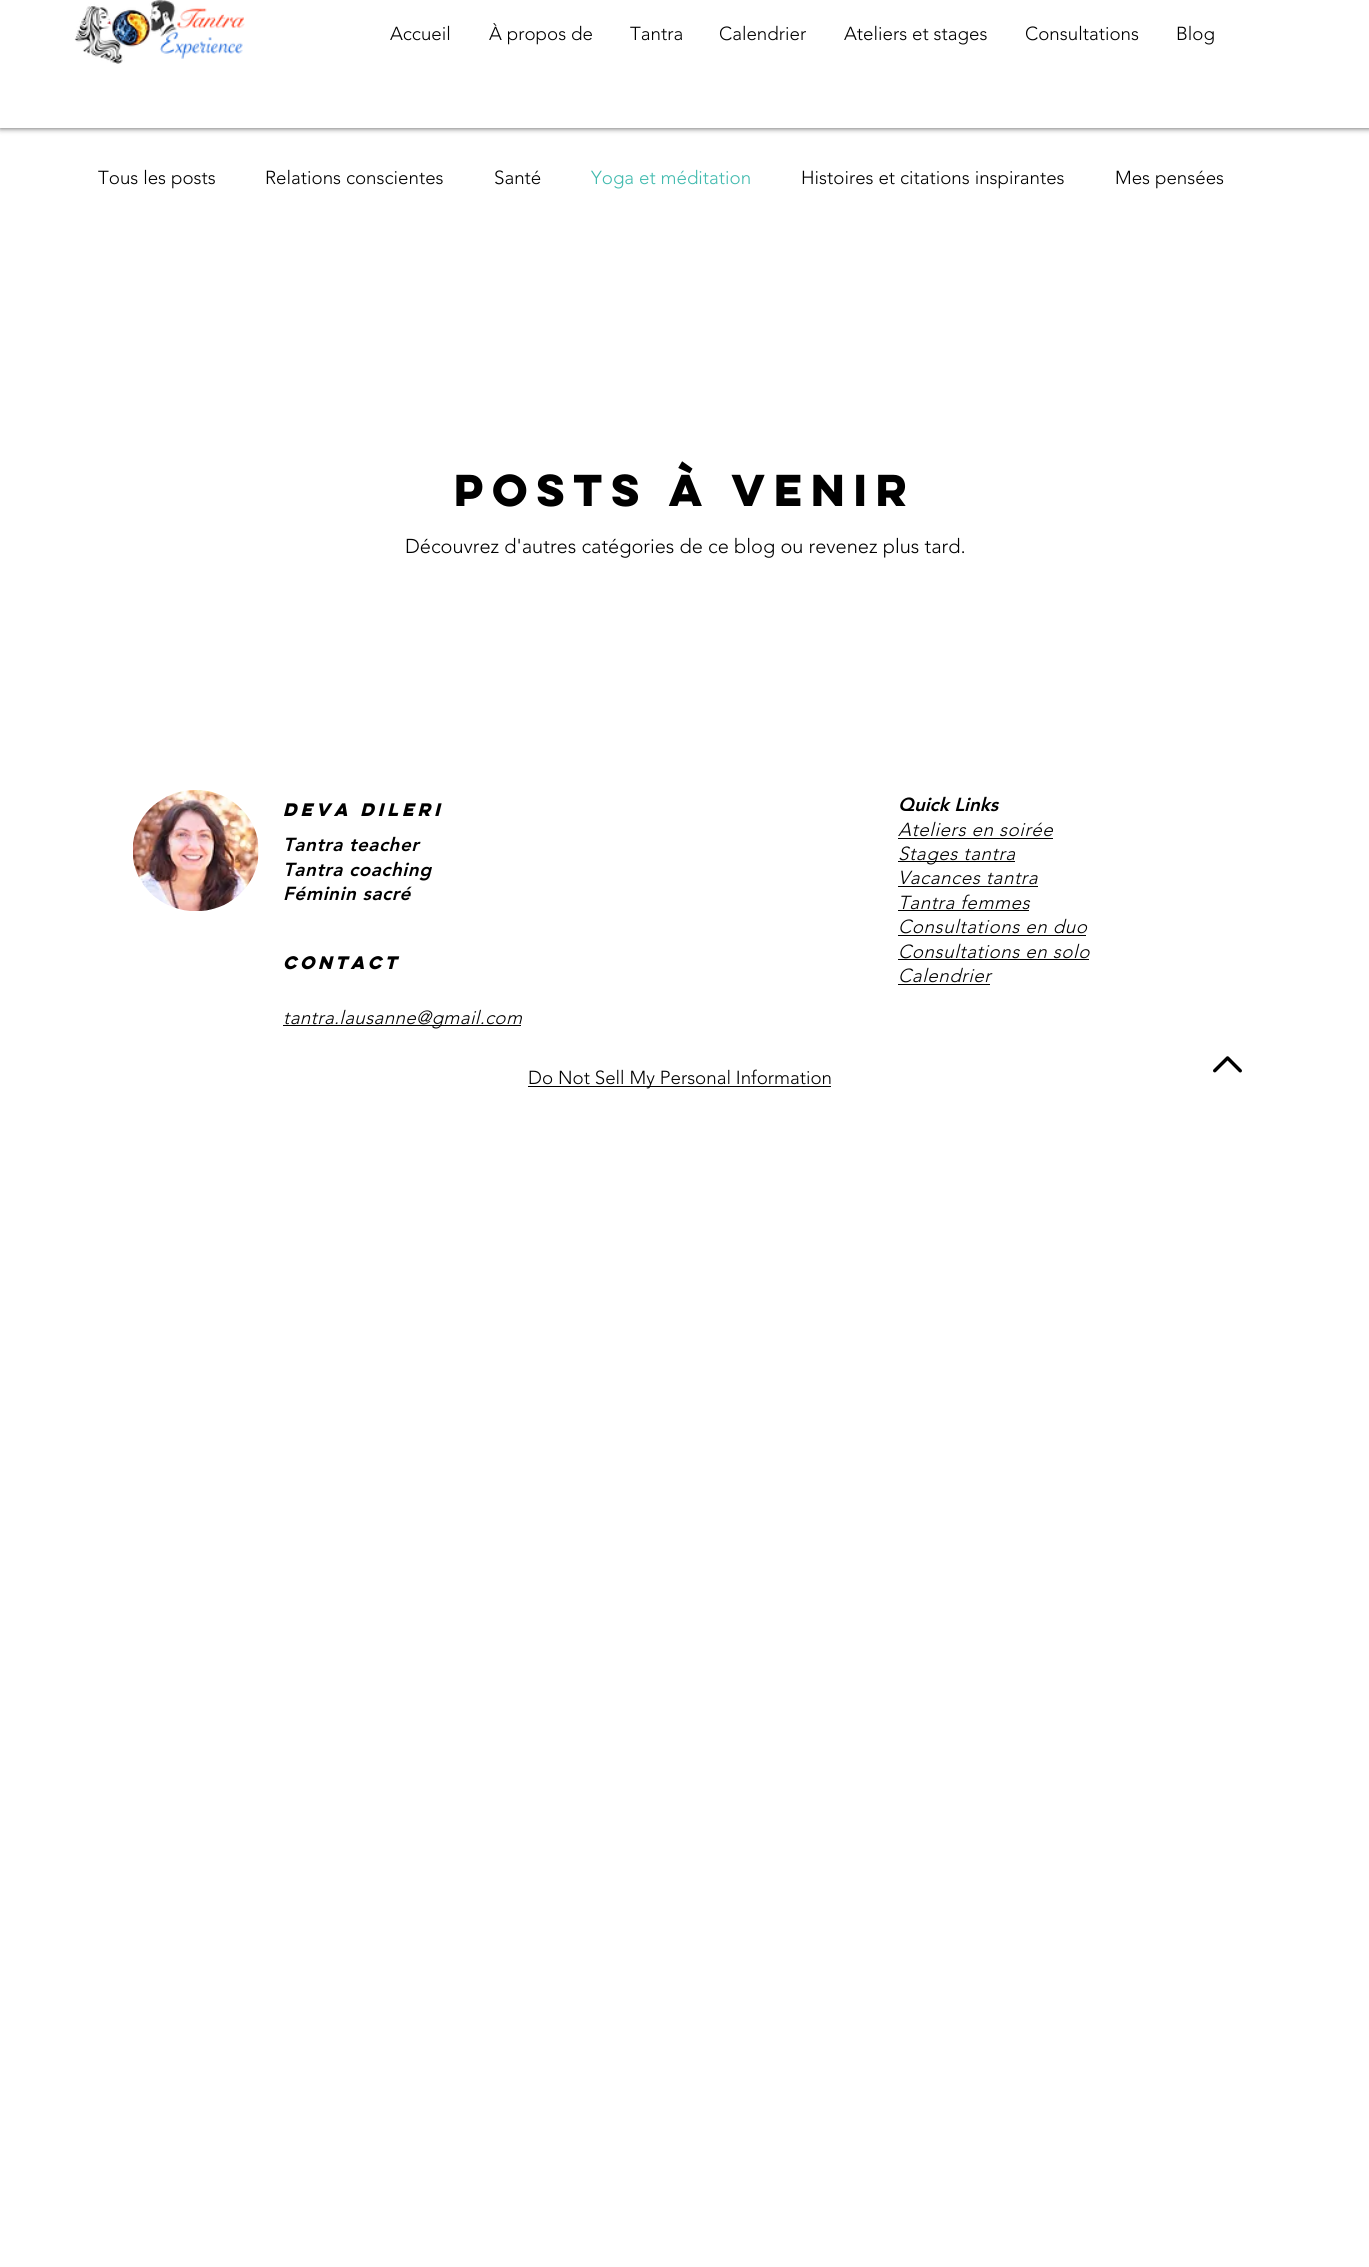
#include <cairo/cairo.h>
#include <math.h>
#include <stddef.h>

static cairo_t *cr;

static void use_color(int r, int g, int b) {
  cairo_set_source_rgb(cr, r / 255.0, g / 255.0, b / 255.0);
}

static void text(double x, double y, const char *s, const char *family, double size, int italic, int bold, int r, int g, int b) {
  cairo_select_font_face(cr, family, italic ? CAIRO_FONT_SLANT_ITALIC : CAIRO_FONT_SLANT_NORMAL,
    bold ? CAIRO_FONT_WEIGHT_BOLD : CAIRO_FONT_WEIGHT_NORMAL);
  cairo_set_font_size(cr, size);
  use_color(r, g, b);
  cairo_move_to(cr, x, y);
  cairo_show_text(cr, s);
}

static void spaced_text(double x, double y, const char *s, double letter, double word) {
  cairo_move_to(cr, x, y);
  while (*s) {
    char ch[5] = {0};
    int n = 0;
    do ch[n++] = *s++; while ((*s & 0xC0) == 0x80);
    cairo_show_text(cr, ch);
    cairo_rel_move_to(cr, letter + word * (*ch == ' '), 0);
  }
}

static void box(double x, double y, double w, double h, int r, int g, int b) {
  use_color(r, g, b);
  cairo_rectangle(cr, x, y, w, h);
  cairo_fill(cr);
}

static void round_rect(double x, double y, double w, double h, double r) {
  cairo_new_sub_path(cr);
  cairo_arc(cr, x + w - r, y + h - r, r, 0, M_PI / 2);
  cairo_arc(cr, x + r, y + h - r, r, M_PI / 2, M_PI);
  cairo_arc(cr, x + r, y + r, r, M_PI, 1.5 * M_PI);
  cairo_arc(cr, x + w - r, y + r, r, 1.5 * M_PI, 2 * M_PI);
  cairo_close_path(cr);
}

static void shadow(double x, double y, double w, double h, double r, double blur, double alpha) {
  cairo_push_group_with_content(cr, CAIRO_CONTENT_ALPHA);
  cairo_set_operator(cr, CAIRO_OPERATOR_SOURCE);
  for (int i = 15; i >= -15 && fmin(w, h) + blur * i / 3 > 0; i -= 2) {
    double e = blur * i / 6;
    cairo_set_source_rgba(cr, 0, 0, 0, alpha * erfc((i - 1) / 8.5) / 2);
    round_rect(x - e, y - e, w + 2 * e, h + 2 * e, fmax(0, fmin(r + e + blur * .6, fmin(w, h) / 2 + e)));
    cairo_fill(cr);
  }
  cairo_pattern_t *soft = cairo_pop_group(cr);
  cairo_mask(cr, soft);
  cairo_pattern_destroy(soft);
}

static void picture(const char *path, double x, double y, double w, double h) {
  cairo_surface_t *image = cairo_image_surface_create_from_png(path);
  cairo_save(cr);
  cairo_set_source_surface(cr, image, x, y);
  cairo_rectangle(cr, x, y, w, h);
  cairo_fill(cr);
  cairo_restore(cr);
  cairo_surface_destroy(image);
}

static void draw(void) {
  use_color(255, 255, 255);
  cairo_paint(cr);
  use_color(0, 0, 0);
  shadow(0, 0, 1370, 128, 0, 3, 0.7);
  box(0, 0, 1369, 128, 255, 255, 255);
  picture("img_01.png", 74, 0, 171, 64);
  picture("img_02.png", 133, 790, 126, 121);
  box(898, 838, 155, 1, 0, 0, 0);
  box(898, 861, 117, 1, 0, 0, 0);
  box(898, 886, 140, 1, 0, 0, 0);
  box(898, 910, 131, 1, 0, 0, 0);
  box(898, 935, 188, 1, 0, 0, 0);
  box(898, 959, 191, 1, 0, 0, 0);
  box(898, 984, 92, 1, 0, 0, 0);
  box(283, 1025, 238, 1, 0, 0, 0);
  picture("img_03.png", 1213, 1056, 29, 17);
  box(528, 1086, 303, 1, 0, 0, 0);
  text(390, 40, "Accueil", "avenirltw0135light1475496 Light", 18.75, 0, 0, 0, 0, 0);
  text(489, 40, "À propos de", "avenirltw0135light1475496 Light", 18.75, 0, 0, 0, 0, 0);
  text(630, 40, "Tantra", "avenirltw0135light1475496 Light", 18.75, 0, 0, 0, 0, 0);
  text(719, 40, "Calendrier", "avenirltw0135light1475496 Light", 18.75, 0, 0, 0, 0, 0);
  text(844, 40, "Ateliers et stages", "avenirltw0135light1475496 Light", 18.75, 0, 0, 0, 0, 0);
  text(1025, 40, "Consultations", "avenirltw0135light1475496 Light", 18.75, 0, 0, 0, 0, 0);
  text(1176, 40, "Blog", "avenirltw0135light1475496 Light", 18.75, 0, 0, 0, 0, 0);
  text(98, 184, "Tous les posts", "avenirltw0135light1475496 Light", 18.75, 0, 0, 0, 0, 0);
  text(265, 184, "Relations conscientes", "avenirltw0135light1475496 Light", 18.75, 0, 0, 0, 0, 0);
  text(494, 184, "Santé", "avenirltw0135light1475496 Light", 18.75, 0, 0, 0, 0, 0);
  text(591, 184, "Yoga et méditation", "avenirltw0135light1475496 Light", 18.75, 0, 0, 65, 186, 174);
  text(801, 184, "Histoires et citations inspirantes", "avenirltw0135light1475496 Light", 18.75, 0, 0, 0, 0, 0);
  text(1115, 184, "Mes pensées", "avenirltw0135light1475496 Light", 18.75, 0, 0, 0, 0, 0);
  text(454, 506, "Posts à venir", "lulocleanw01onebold", 40, 0, 1, 0, 0, 0);
  text(405, 553, "Découvrez d'autres catégories de ce blog ou revenez plus tard.", "avenirltw0135light1475496 Light", 20, 0, 0, 0, 0, 0);
  cairo_select_font_face(cr, "lulocleanw01onebold", CAIRO_FONT_SLANT_ITALIC, CAIRO_FONT_WEIGHT_BOLD);
  cairo_set_font_size(cr, 16.25);
  spaced_text(283, 816, "DEVA DILERI", 0.5, 0);
  text(898, 811, "Quick Links", "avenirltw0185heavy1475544 Black", 18.75, 1, 0, 0, 0, 0);
  cairo_select_font_face(cr, "avenirltw0135light1475496 Light", CAIRO_FONT_SLANT_ITALIC, CAIRO_FONT_WEIGHT_NORMAL);
  spaced_text(898, 836, "Ateliers en soirée", 0.6, 0);
  spaced_text(898, 860, "Stages tantra", 0.6, 0);
  spaced_text(898, 884, "Vacances tantra", 0.6, 0);
  spaced_text(898, 909, "Tantra femmes", 0.6, 0);
  spaced_text(898, 933, "Consultations en duo", 0.6, 0);
  spaced_text(898, 958, "Consultations en solo", 0.6, 0);
  spaced_text(898, 982, "Calendrier", 0.6, 0);
  cairo_select_font_face(cr, "avenirltw0185heavy1475544 Black", CAIRO_FONT_SLANT_ITALIC, CAIRO_FONT_WEIGHT_NORMAL);
  spaced_text(283, 851, "Tantra teacher", 0.6, 0);
  spaced_text(283, 876, "Tantra coaching", 0.6, 0);
  spaced_text(283, 900, "Féminin sacré", 0.6, 0);
  text(283, 969, "Contact", "lulocleanw01onebold", 16.25, 1, 1, 0, 0, 0);
  cairo_select_font_face(cr, "avenirltw0135light1475496 Light", CAIRO_FONT_SLANT_ITALIC, CAIRO_FONT_WEIGHT_NORMAL);
  cairo_set_font_size(cr, 18.75);
  spaced_text(283, 1024, "tantra.lausanne@gmail.com", 0.4, 0);
  text(528, 1084, "Do Not Sell My Personal Information", "avenirltw0135light1475496 Light", 18.75, 0, 0, 0, 0, 0);
}

int main(void) {
  cairo_surface_t *surface = cairo_image_surface_create(CAIRO_FORMAT_RGB24, 1369, 2267);
  cr = cairo_create(surface);
  cairo_font_options_t *options = cairo_font_options_create();
  cairo_font_options_set_hint_metrics(options, CAIRO_HINT_METRICS_OFF);
  cairo_font_options_set_hint_style(options, CAIRO_HINT_STYLE_NONE);
  cairo_set_font_options(cr, options);
  cairo_set_miter_limit(cr, 4);
  draw();
  cairo_surface_write_to_png(surface, "out.png");
  cairo_font_options_destroy(options);
  cairo_destroy(cr);
  cairo_surface_destroy(surface);
  return 0;
}
